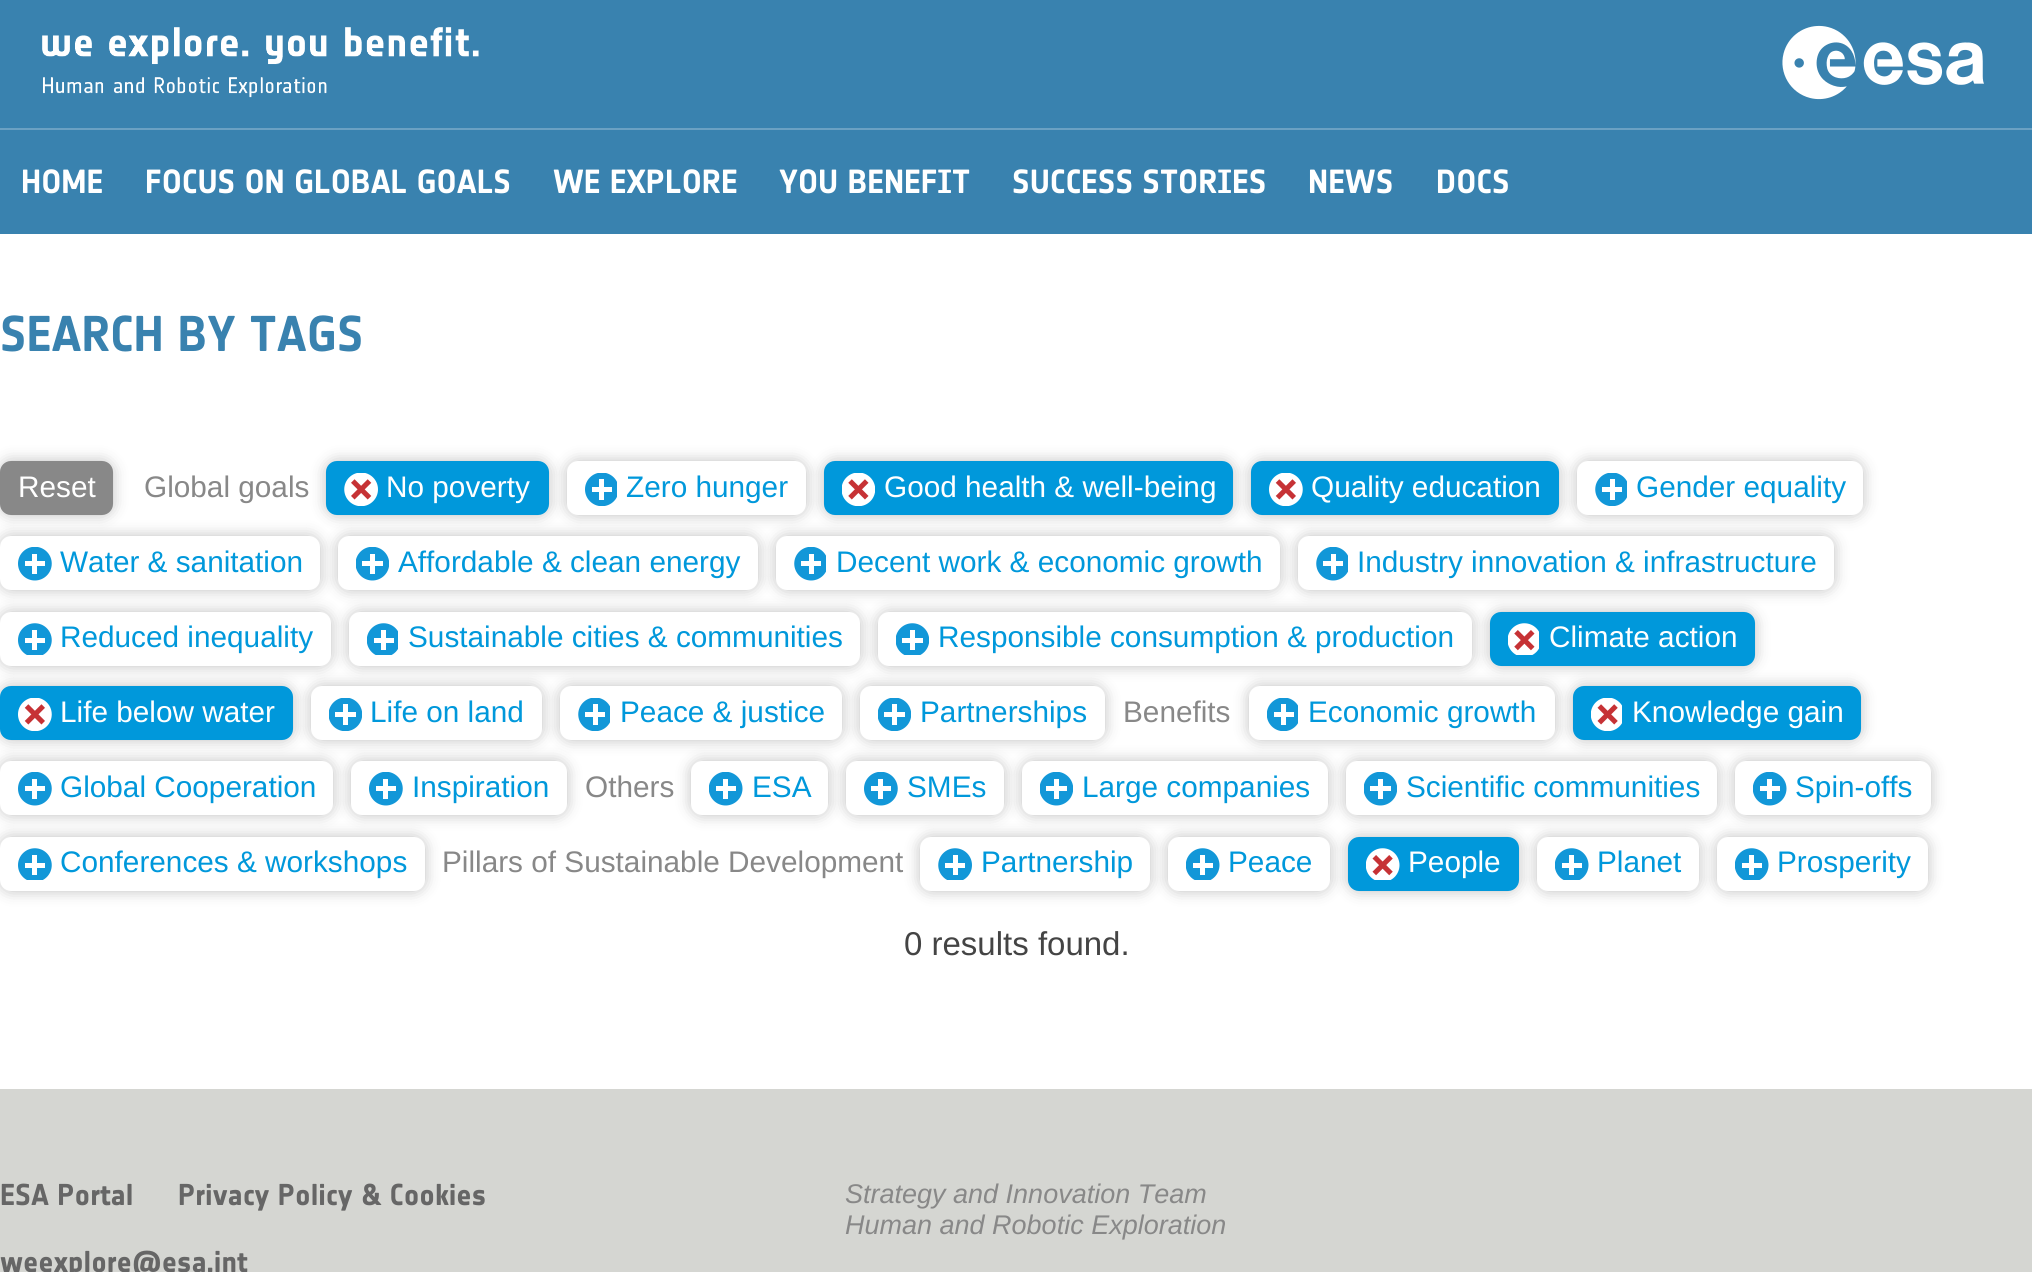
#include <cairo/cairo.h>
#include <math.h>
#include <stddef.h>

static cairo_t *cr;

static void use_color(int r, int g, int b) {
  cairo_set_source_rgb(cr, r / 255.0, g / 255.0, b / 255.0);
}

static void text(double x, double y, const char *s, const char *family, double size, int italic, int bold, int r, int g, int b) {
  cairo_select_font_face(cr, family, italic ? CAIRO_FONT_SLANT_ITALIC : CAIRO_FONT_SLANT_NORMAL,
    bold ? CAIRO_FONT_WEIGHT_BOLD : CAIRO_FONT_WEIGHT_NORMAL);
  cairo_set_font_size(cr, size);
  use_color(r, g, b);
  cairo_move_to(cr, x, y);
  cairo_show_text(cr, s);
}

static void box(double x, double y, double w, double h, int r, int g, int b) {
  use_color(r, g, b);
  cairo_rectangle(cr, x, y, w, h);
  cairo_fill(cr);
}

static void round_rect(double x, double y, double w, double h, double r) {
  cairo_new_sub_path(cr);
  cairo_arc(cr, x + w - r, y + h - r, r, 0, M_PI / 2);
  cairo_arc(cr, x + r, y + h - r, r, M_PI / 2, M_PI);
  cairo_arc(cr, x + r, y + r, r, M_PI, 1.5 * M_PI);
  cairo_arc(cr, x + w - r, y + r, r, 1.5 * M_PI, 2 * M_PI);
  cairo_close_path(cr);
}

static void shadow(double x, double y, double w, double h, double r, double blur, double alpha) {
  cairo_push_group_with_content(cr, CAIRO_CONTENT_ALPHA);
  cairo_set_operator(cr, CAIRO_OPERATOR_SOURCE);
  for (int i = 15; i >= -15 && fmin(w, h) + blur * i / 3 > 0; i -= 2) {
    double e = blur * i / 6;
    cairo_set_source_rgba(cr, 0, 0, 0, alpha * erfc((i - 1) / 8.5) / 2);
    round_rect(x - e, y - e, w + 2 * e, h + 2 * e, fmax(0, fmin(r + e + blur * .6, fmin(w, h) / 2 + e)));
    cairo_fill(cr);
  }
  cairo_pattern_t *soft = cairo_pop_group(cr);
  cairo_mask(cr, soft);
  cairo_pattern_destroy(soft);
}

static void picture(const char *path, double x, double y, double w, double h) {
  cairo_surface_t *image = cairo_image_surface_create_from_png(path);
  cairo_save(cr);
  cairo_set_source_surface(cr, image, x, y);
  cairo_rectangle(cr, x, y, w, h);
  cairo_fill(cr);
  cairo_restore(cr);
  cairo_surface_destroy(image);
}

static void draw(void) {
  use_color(255, 255, 255);
  cairo_paint(cr);
  box(0, 0, 2032, 128, 57, 130, 175);
  picture("img_01.png", 42, 27, 437, 71);
  picture("img_02.png", 1782, 25, 202, 75);
  box(0, 130, 2032, 104, 57, 130, 175);
  box(0, 128, 2032, 2, 107, 161, 195);
  use_color(0, 0, 0);
  shadow(0, 461, 113, 54, 11, 7.5, 0.25);
  use_color(136, 136, 136);
  round_rect(0, 461, 113, 54, 11);
  cairo_fill(cr);
  use_color(0, 0, 0);
  shadow(326, 461, 223, 54, 11, 7.5, 0.25);
  use_color(0, 152, 219);
  round_rect(326, 461, 223, 54, 11);
  cairo_fill(cr);
  picture("img_03.png", 344, 473, 34, 33);
  use_color(0, 0, 0);
  shadow(567, 461, 239, 54, 11, 7.5, 0.25);
  use_color(255, 255, 255);
  round_rect(567, 461, 239, 54, 11);
  cairo_fill(cr);
  picture("img_04.png", 585, 473, 32, 33);
  use_color(0, 0, 0);
  shadow(824, 461, 409, 54, 11, 7.5, 0.25);
  use_color(0, 152, 219);
  round_rect(824, 461, 409, 54, 11);
  cairo_fill(cr);
  picture("img_05.png", 842, 473, 33, 33);
  use_color(0, 0, 0);
  shadow(1251, 461, 308, 54, 11, 7.5, 0.25);
  use_color(0, 152, 219);
  round_rect(1251, 461, 308, 54, 11);
  cairo_fill(cr);
  picture("img_06.png", 1269, 473, 34, 33);
  use_color(0, 0, 0);
  shadow(1577, 461, 286, 54, 11, 7.5, 0.25);
  use_color(255, 255, 255);
  round_rect(1577, 461, 286, 54, 11);
  cairo_fill(cr);
  picture("img_07.png", 1595, 473, 32, 33);
  use_color(0, 0, 0);
  shadow(0, 536, 320, 54, 11, 7.5, 0.25);
  use_color(255, 255, 255);
  round_rect(0, 536, 320, 54, 11);
  cairo_fill(cr);
  picture("img_08.png", 18, 547, 34, 34);
  use_color(0, 0, 0);
  shadow(338, 536, 420, 54, 11, 7.5, 0.25);
  use_color(255, 255, 255);
  round_rect(338, 536, 420, 54, 11);
  cairo_fill(cr);
  picture("img_09.png", 356, 547, 33, 34);
  use_color(0, 0, 0);
  shadow(776, 536, 504, 54, 11, 7.5, 0.25);
  use_color(255, 255, 255);
  round_rect(776, 536, 504, 54, 11);
  cairo_fill(cr);
  picture("img_10.png", 794, 547, 32, 34);
  use_color(0, 0, 0);
  shadow(1298, 536, 536, 54, 11, 7.5, 0.25);
  use_color(255, 255, 255);
  round_rect(1298, 536, 536, 54, 11);
  cairo_fill(cr);
  picture("img_10.png", 1316, 547, 32, 34);
  use_color(0, 0, 0);
  shadow(0, 612, 331, 54, 11, 7.5, 0.25);
  use_color(255, 255, 255);
  round_rect(0, 612, 331, 54, 11);
  cairo_fill(cr);
  picture("img_11.png", 18, 623, 34, 32);
  use_color(0, 0, 0);
  shadow(349, 612, 511, 54, 11, 7.5, 0.25);
  use_color(255, 255, 255);
  round_rect(349, 612, 511, 54, 11);
  cairo_fill(cr);
  picture("img_12.png", 367, 623, 31, 32);
  use_color(0, 0, 0);
  shadow(878, 612, 594, 54, 11, 7.5, 0.25);
  use_color(255, 255, 255);
  round_rect(878, 612, 594, 54, 11);
  cairo_fill(cr);
  picture("img_13.png", 896, 623, 33, 32);
  use_color(0, 0, 0);
  shadow(1490, 612, 265, 54, 11, 7.5, 0.25);
  use_color(0, 152, 219);
  round_rect(1490, 612, 265, 54, 11);
  cairo_fill(cr);
  picture("img_14.png", 1508, 623, 31, 32);
  use_color(0, 0, 0);
  shadow(0, 686, 293, 54, 11, 7.5, 0.25);
  use_color(0, 152, 219);
  round_rect(0, 686, 293, 54, 11);
  cairo_fill(cr);
  picture("img_06.png", 18, 698, 34, 33);
  use_color(0, 0, 0);
  shadow(311, 686, 231, 54, 11, 7.5, 0.25);
  use_color(255, 255, 255);
  round_rect(311, 686, 231, 54, 11);
  cairo_fill(cr);
  picture("img_15.png", 329, 698, 33, 33);
  use_color(0, 0, 0);
  shadow(560, 686, 282, 54, 11, 7.5, 0.25);
  use_color(255, 255, 255);
  round_rect(560, 686, 282, 54, 11);
  cairo_fill(cr);
  picture("img_07.png", 578, 698, 32, 33);
  use_color(0, 0, 0);
  shadow(860, 686, 245, 54, 11, 7.5, 0.25);
  use_color(255, 255, 255);
  round_rect(860, 686, 245, 54, 11);
  cairo_fill(cr);
  picture("img_15.png", 878, 698, 33, 33);
  use_color(0, 0, 0);
  shadow(1249, 686, 306, 54, 11, 7.5, 0.25);
  use_color(255, 255, 255);
  round_rect(1249, 686, 306, 54, 11);
  cairo_fill(cr);
  picture("img_16.png", 1267, 698, 31, 33);
  use_color(0, 0, 0);
  shadow(1573, 686, 288, 54, 11, 7.5, 0.25);
  use_color(0, 152, 219);
  round_rect(1573, 686, 288, 54, 11);
  cairo_fill(cr);
  picture("img_17.png", 1591, 698, 31, 33);
  use_color(0, 0, 0);
  shadow(0, 761, 333, 54, 11, 7.5, 0.25);
  use_color(255, 255, 255);
  round_rect(0, 761, 333, 54, 11);
  cairo_fill(cr);
  picture("img_08.png", 18, 772, 34, 34);
  use_color(0, 0, 0);
  shadow(351, 761, 216, 54, 11, 7.5, 0.25);
  use_color(255, 255, 255);
  round_rect(351, 761, 216, 54, 11);
  cairo_fill(cr);
  picture("img_08.png", 369, 772, 34, 34);
  use_color(0, 0, 0);
  shadow(691, 761, 137, 54, 11, 7.5, 0.25);
  use_color(255, 255, 255);
  round_rect(691, 761, 137, 54, 11);
  cairo_fill(cr);
  picture("img_18.png", 709, 772, 34, 34);
  use_color(0, 0, 0);
  shadow(846, 761, 158, 54, 11, 7.5, 0.25);
  use_color(255, 255, 255);
  round_rect(846, 761, 158, 54, 11);
  cairo_fill(cr);
  picture("img_08.png", 864, 772, 34, 34);
  use_color(0, 0, 0);
  shadow(1022, 761, 306, 54, 11, 7.5, 0.25);
  use_color(255, 255, 255);
  round_rect(1022, 761, 306, 54, 11);
  cairo_fill(cr);
  picture("img_09.png", 1040, 772, 33, 34);
  use_color(0, 0, 0);
  shadow(1346, 761, 371, 54, 11, 7.5, 0.25);
  use_color(255, 255, 255);
  round_rect(1346, 761, 371, 54, 11);
  cairo_fill(cr);
  picture("img_09.png", 1364, 772, 33, 34);
  use_color(0, 0, 0);
  shadow(1735, 761, 196, 54, 11, 7.5, 0.25);
  use_color(255, 255, 255);
  round_rect(1735, 761, 196, 54, 11);
  cairo_fill(cr);
  picture("img_18.png", 1753, 772, 34, 34);
  use_color(0, 0, 0);
  shadow(0, 837, 425, 54, 11, 7.5, 0.25);
  use_color(255, 255, 255);
  round_rect(0, 837, 425, 54, 11);
  cairo_fill(cr);
  picture("img_11.png", 18, 848, 34, 32);
  use_color(0, 0, 0);
  shadow(920, 837, 230, 54, 11, 7.5, 0.25);
  use_color(255, 255, 255);
  round_rect(920, 837, 230, 54, 11);
  cairo_fill(cr);
  picture("img_19.png", 938, 848, 34, 32);
  use_color(0, 0, 0);
  shadow(1168, 837, 162, 54, 11, 7.5, 0.25);
  use_color(255, 255, 255);
  round_rect(1168, 837, 162, 54, 11);
  cairo_fill(cr);
  picture("img_20.png", 1186, 848, 34, 32);
  use_color(0, 0, 0);
  shadow(1348, 837, 171, 54, 11, 7.5, 0.25);
  use_color(0, 152, 219);
  round_rect(1348, 837, 171, 54, 11);
  cairo_fill(cr);
  picture("img_21.png", 1366, 848, 34, 32);
  use_color(0, 0, 0);
  shadow(1537, 837, 162, 54, 11, 7.5, 0.25);
  use_color(255, 255, 255);
  round_rect(1537, 837, 162, 54, 11);
  cairo_fill(cr);
  picture("img_20.png", 1555, 848, 34, 32);
  use_color(0, 0, 0);
  shadow(1717, 837, 211, 54, 11, 7.5, 0.25);
  use_color(255, 255, 255);
  round_rect(1717, 837, 211, 54, 11);
  cairo_fill(cr);
  picture("img_20.png", 1735, 848, 34, 32);
  box(0, 1089, 2032, 183, 213, 214, 210);
  text(21, 193, "HOME", "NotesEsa", 33, 0, 1, 255, 255, 255);
  text(145, 193, "FOCUS ON GLOBAL GOALS", "NotesEsa", 33, 0, 1, 255, 255, 255);
  text(553, 193, "WE EXPLORE", "NotesEsa", 33, 0, 1, 255, 255, 255);
  text(779, 193, "YOU BENEFIT", "NotesEsa", 33, 0, 1, 255, 255, 255);
  text(1012, 193, "SUCCESS STORIES", "NotesEsa", 33, 0, 1, 255, 255, 255);
  text(1308, 193, "NEWS", "NotesEsa", 33, 0, 1, 255, 255, 255);
  text(1436, 193, "DOCS", "NotesEsa", 33, 0, 1, 255, 255, 255);
  text(0, 351, "SEARCH BY TAGS", "NotesEsa", 49.5, 0, 1, 57, 130, 175);
  text(18, 497, "Reset", "Liberation Sans", 29.75, 0, 0, 255, 255, 255);
  text(144, 497, "Global goals", "Liberation Sans", 29.75, 0, 0, 136, 136, 136);
  text(386, 497, "No poverty", "Liberation Sans", 29.75, 0, 0, 255, 255, 255);
  text(626, 497, "Zero hunger", "Liberation Sans", 29.75, 0, 0, 0, 152, 219);
  text(884, 497, "Good health & well-being", "Liberation Sans", 29.75, 0, 0, 255, 255, 255);
  text(1311, 497, "Quality education", "Liberation Sans", 29.75, 0, 0, 255, 255, 255);
  text(1636, 497, "Gender equality", "Liberation Sans", 29.75, 0, 0, 0, 152, 219);
  text(60, 572, "Water & sanitation", "Liberation Sans", 29.75, 0, 0, 0, 152, 219);
  text(398, 572, "Affordable & clean energy", "Liberation Sans", 29.75, 0, 0, 0, 152, 219);
  text(836, 572, "Decent work & economic growth", "Liberation Sans", 29.75, 0, 0, 0, 152, 219);
  text(1357, 572, "Industry innovation & infrastructure", "Liberation Sans", 29.75, 0, 0, 0, 152, 219);
  text(60, 647, "Reduced inequality", "Liberation Sans", 29.75, 0, 0, 0, 152, 219);
  text(408, 647, "Sustainable cities & communities", "Liberation Sans", 29.75, 0, 0, 0, 152, 219);
  text(938, 647, "Responsible consumption & production", "Liberation Sans", 29.75, 0, 0, 0, 152, 219);
  text(1549, 647, "Climate action", "Liberation Sans", 29.75, 0, 0, 255, 255, 255);
  text(60, 722, "Life below water", "Liberation Sans", 29.75, 0, 0, 255, 255, 255);
  text(370, 722, "Life on land", "Liberation Sans", 29.75, 0, 0, 0, 152, 219);
  text(620, 722, "Peace & justice", "Liberation Sans", 29.75, 0, 0, 0, 152, 219);
  text(920, 722, "Partnerships", "Liberation Sans", 29.75, 0, 0, 0, 152, 219);
  text(1123, 722, "Benefits", "Liberation Sans", 29.75, 0, 0, 136, 136, 136);
  text(1308, 722, "Economic growth", "Liberation Sans", 29.75, 0, 0, 0, 152, 219);
  text(1632, 722, "Knowledge gain", "Liberation Sans", 29.75, 0, 0, 255, 255, 255);
  text(60, 797, "Global Cooperation", "Liberation Sans", 29.75, 0, 0, 0, 152, 219);
  text(412, 797, "Inspiration", "Liberation Sans", 29.75, 0, 0, 0, 152, 219);
  text(585, 797, "Others", "Liberation Sans", 29.75, 0, 0, 136, 136, 136);
  text(752, 797, "ESA", "Liberation Sans", 29.75, 0, 0, 0, 152, 219);
  text(907, 797, "SMEs", "Liberation Sans", 29.75, 0, 0, 0, 152, 219);
  text(1082, 797, "Large companies", "Liberation Sans", 29.75, 0, 0, 0, 152, 219);
  text(1406, 797, "Scientific communities", "Liberation Sans", 29.75, 0, 0, 0, 152, 219);
  text(1795, 797, "Spin-offs", "Liberation Sans", 29.75, 0, 0, 0, 152, 219);
  text(60, 872, "Conferences & workshops", "Liberation Sans", 29.75, 0, 0, 0, 152, 219);
  text(442, 872, "Pillars of Sustainable Development", "Liberation Sans", 29.75, 0, 0, 136, 136, 136);
  text(981, 872, "Partnership", "Liberation Sans", 29.75, 0, 0, 0, 152, 219);
  text(1228, 872, "Peace", "Liberation Sans", 29.75, 0, 0, 0, 152, 219);
  text(1408, 872, "People", "Liberation Sans", 29.75, 0, 0, 255, 255, 255);
  text(1597, 872, "Planet", "Liberation Sans", 29.75, 0, 0, 0, 152, 219);
  text(1777, 872, "Prosperity", "Liberation Sans", 29.75, 0, 0, 0, 152, 219);
  text(904, 955, "0 results found.", "Liberation Sans", 33, 0, 0, 68, 68, 68);
  text(0, 1205, "ESA Portal", "NotesEsa", 29.75, 0, 1, 102, 102, 102);
  text(178, 1205, "Privacy Policy & Cookies", "NotesEsa", 29.75, 0, 1, 102, 102, 102);
  text(0, 1272, "weexplore@esa.int", "NotesEsa", 29.75, 0, 1, 102, 102, 102);
  text(845, 1203, "Strategy and Innovation Team", "Liberation Sans", 27, 1, 0, 136, 136, 136);
  text(845, 1234, "Human and Robotic Exploration", "Liberation Sans", 27, 1, 0, 136, 136, 136);
}

int main(void) {
  cairo_surface_t *surface = cairo_image_surface_create(CAIRO_FORMAT_RGB24, 2032, 1272);
  cr = cairo_create(surface);
  cairo_font_options_t *options = cairo_font_options_create();
  cairo_font_options_set_hint_metrics(options, CAIRO_HINT_METRICS_OFF);
  cairo_font_options_set_hint_style(options, CAIRO_HINT_STYLE_NONE);
  cairo_set_font_options(cr, options);
  cairo_set_miter_limit(cr, 4);
  draw();
  cairo_surface_write_to_png(surface, "out.png");
  cairo_font_options_destroy(options);
  cairo_destroy(cr);
  cairo_surface_destroy(surface);
  return 0;
}
